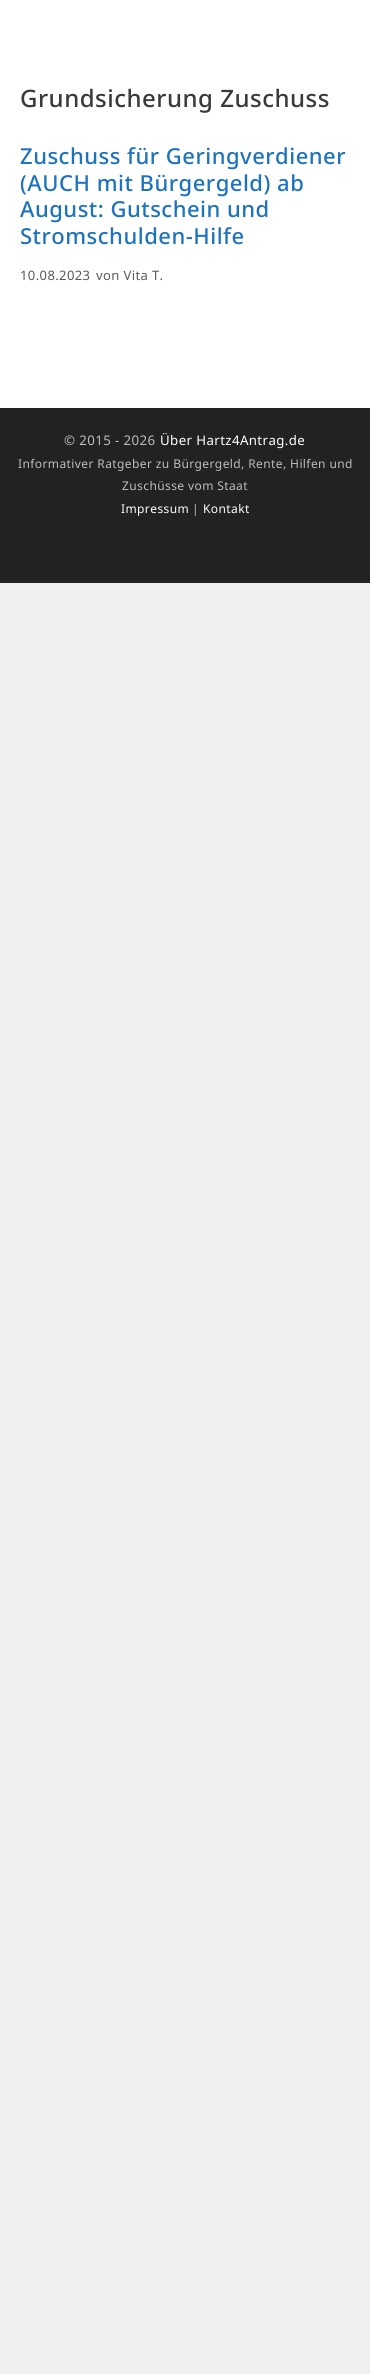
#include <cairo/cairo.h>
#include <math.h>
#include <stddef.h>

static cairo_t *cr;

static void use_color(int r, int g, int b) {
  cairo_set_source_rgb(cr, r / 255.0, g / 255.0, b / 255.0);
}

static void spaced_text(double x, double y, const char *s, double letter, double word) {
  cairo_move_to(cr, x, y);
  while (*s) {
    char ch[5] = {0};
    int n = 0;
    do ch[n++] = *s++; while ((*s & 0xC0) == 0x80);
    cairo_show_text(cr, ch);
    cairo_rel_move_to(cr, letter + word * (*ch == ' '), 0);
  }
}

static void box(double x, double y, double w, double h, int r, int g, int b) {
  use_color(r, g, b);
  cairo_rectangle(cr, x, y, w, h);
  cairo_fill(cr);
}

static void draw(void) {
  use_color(239, 239, 239);
  cairo_paint(cr);
  box(0, 0, 370, 408, 255, 255, 255);
  box(0, 408, 370, 175, 34, 34, 34);
  cairo_select_font_face(cr, "Noto Sans Medium", CAIRO_FONT_SLANT_NORMAL, CAIRO_FONT_WEIGHT_NORMAL);
  cairo_set_font_size(cr, 24);
  use_color(58, 58, 58);
  spaced_text(20, 107, "Grundsicherung Zuschuss", 0.5, 0);
  cairo_set_font_size(cr, 22);
  use_color(30, 115, 190);
  spaced_text(20, 164, "Zuschuss für Geringverdiener", 0.5, 0);
  spaced_text(20, 191, "(AUCH mit Bürgergeld) ab", 0.5, 0);
  spaced_text(20, 217, "August: Gutschein und", 0.5, 0);
  spaced_text(20, 244, "Stromschulden-Hilfe", 0.5, 0);
  cairo_select_font_face(cr, "Noto Sans", CAIRO_FONT_SLANT_NORMAL, CAIRO_FONT_WEIGHT_NORMAL);
  cairo_set_font_size(cr, 13);
  use_color(89, 89, 89);
  spaced_text(20, 280, "10.08.2023", 0.4, 0);
  spaced_text(96, 280, "von Vita T.", 0.4, 0);
  cairo_set_font_size(cr, 13.25);
  use_color(189, 189, 189);
  spaced_text(64, 445, "© 2015 - 2026", 0.4, 0);
  use_color(255, 255, 255);
  spaced_text(160, 445, "Über Hartz4Antrag.de", 0.4, 0);
  cairo_set_font_size(cr, 12);
  use_color(189, 189, 189);
  spaced_text(18, 468, "Informativer Ratgeber zu Bürgergeld, Rente, Hilfen und", 0.4, 0);
  spaced_text(122, 490, "Zuschüsse vom Staat", 0.4, 0);
  use_color(255, 255, 255);
  spaced_text(121, 513, "Impressum", 0.4, 0);
  use_color(189, 189, 189);
  spaced_text(192, 513, "|", 0.4, 0);
  use_color(255, 255, 255);
  spaced_text(203, 513, "Kontakt", 0.4, 0);
}

int main(void) {
  cairo_surface_t *surface = cairo_image_surface_create(CAIRO_FORMAT_RGB24, 370, 2374);
  cr = cairo_create(surface);
  cairo_font_options_t *options = cairo_font_options_create();
  cairo_font_options_set_hint_metrics(options, CAIRO_HINT_METRICS_OFF);
  cairo_font_options_set_hint_style(options, CAIRO_HINT_STYLE_NONE);
  cairo_set_font_options(cr, options);
  cairo_set_miter_limit(cr, 4);
  draw();
  cairo_surface_write_to_png(surface, "out.png");
  cairo_font_options_destroy(options);
  cairo_destroy(cr);
  cairo_surface_destroy(surface);
  return 0;
}
